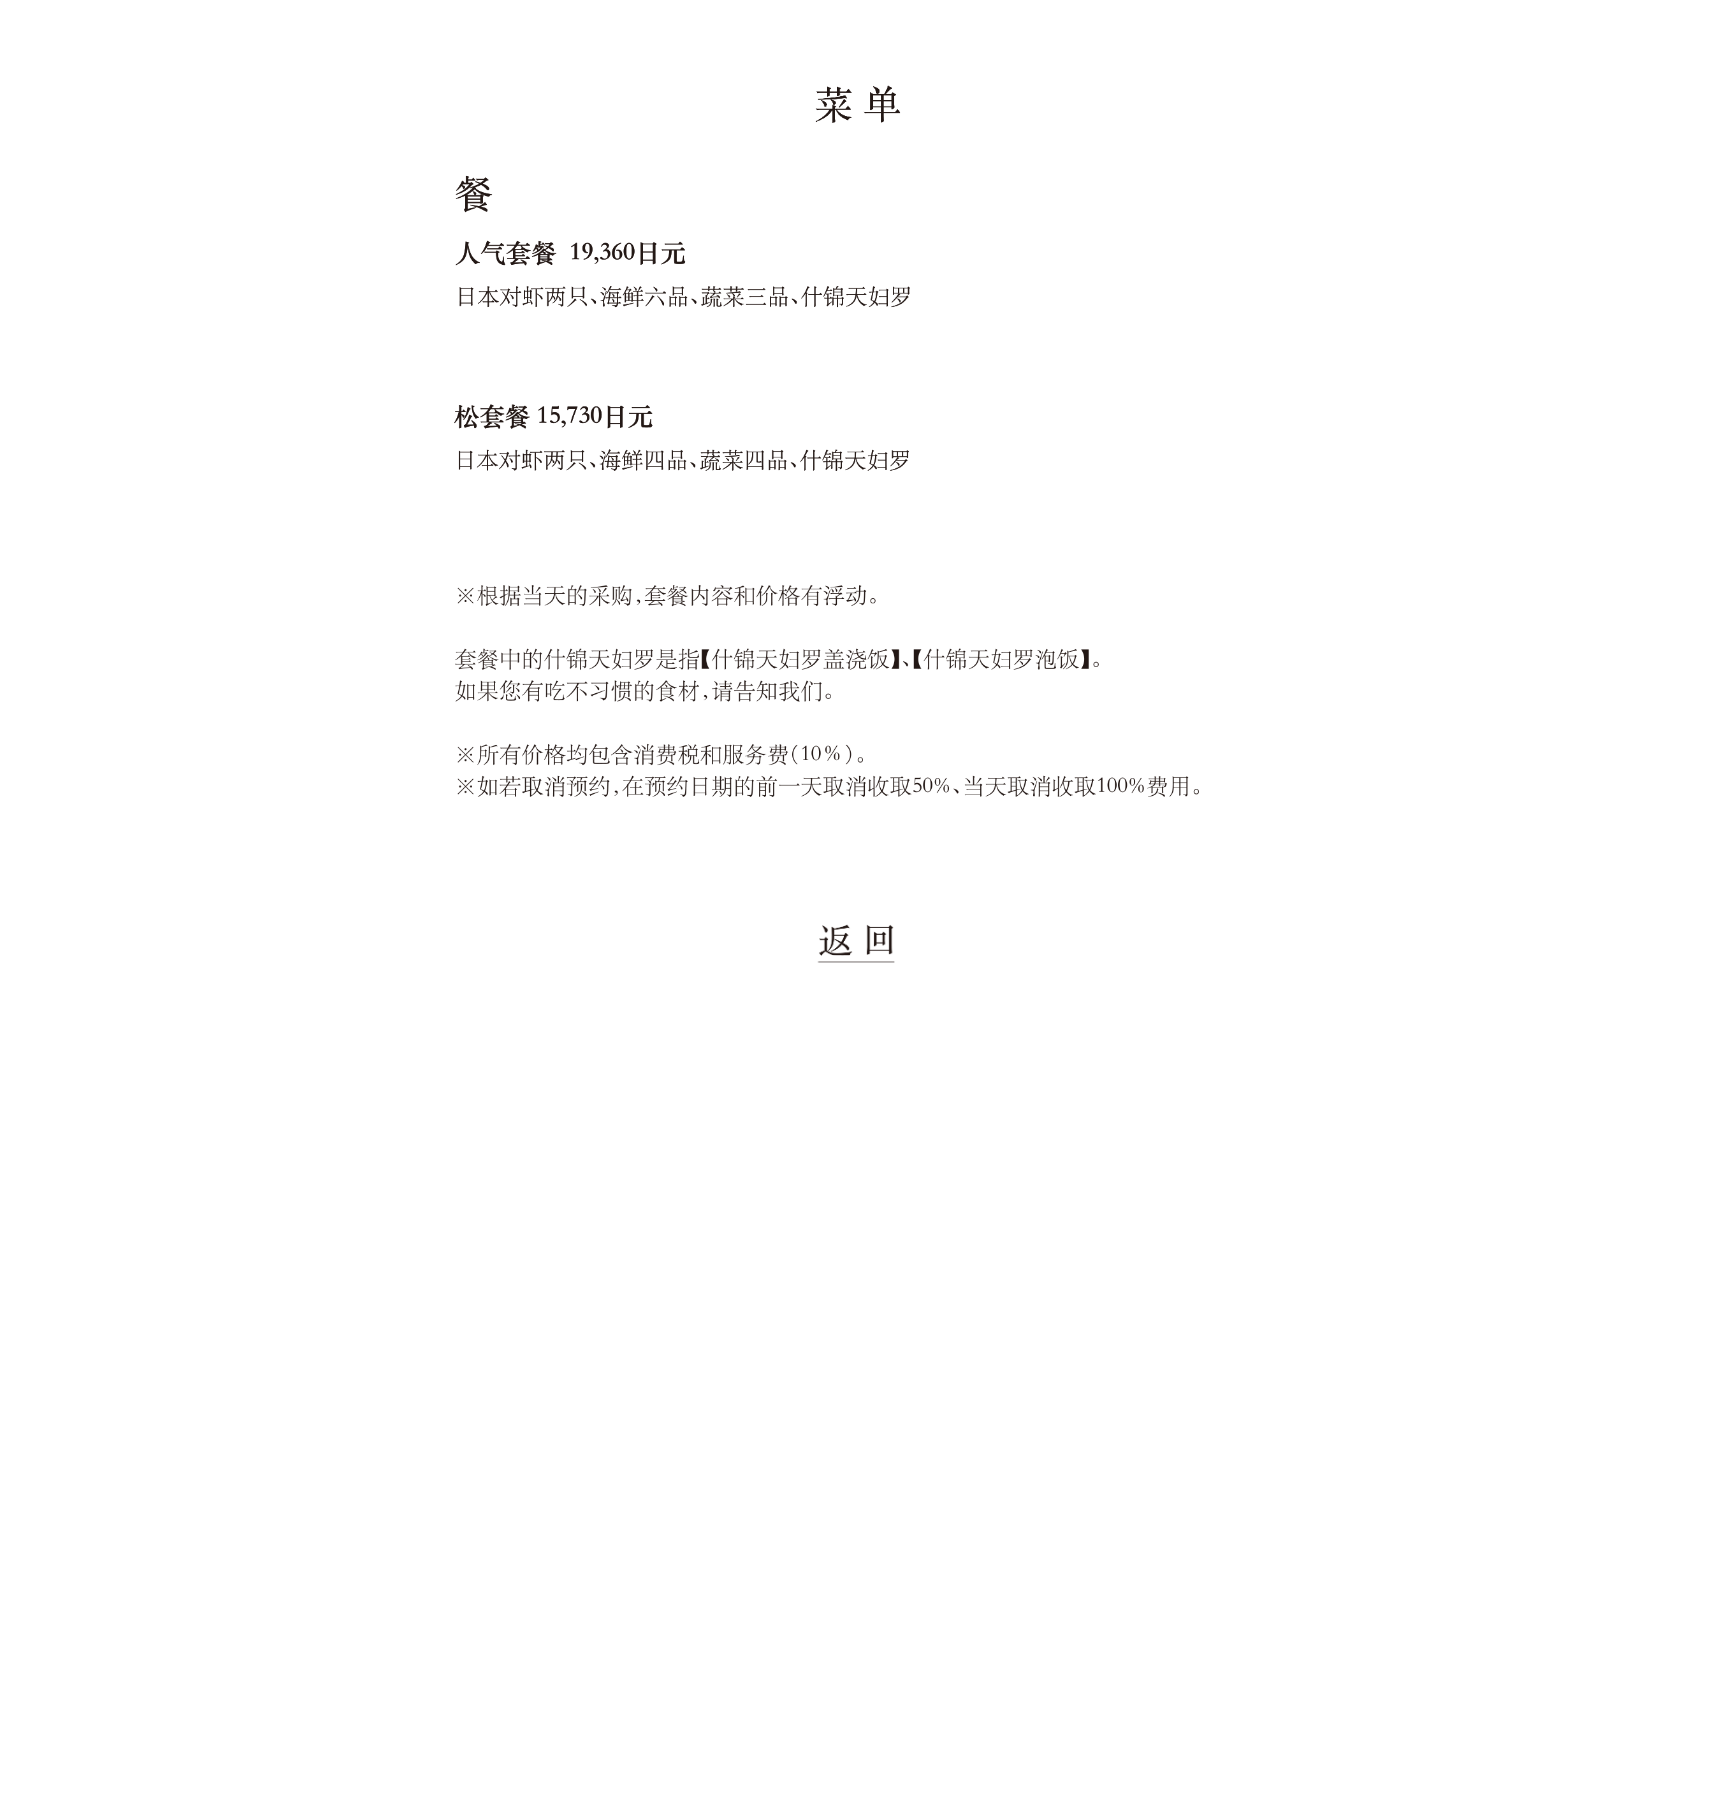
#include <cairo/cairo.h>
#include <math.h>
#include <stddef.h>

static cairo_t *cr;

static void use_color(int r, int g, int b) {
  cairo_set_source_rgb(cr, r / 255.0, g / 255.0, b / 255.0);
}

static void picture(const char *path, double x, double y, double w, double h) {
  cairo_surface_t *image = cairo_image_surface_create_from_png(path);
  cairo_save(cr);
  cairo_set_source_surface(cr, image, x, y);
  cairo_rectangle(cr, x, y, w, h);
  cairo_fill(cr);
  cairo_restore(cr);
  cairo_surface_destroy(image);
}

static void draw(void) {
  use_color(255, 255, 255);
  cairo_paint(cr);
  picture("img_01.png", 815, 85, 86, 38);
  picture("img_02.png", 455, 175, 455, 133);
  picture("img_03.png", 454, 404, 455, 67);
  picture("img_04.png", 455, 585, 744, 212);
  picture("img_05.png", 817, 924, 78, 39);
}

int main(void) {
  cairo_surface_t *surface = cairo_image_surface_create(CAIRO_FORMAT_RGB24, 1711, 1811);
  cr = cairo_create(surface);
  cairo_font_options_t *options = cairo_font_options_create();
  cairo_font_options_set_hint_metrics(options, CAIRO_HINT_METRICS_OFF);
  cairo_font_options_set_hint_style(options, CAIRO_HINT_STYLE_NONE);
  cairo_set_font_options(cr, options);
  cairo_set_miter_limit(cr, 4);
  draw();
  cairo_surface_write_to_png(surface, "out.png");
  cairo_font_options_destroy(options);
  cairo_destroy(cr);
  cairo_surface_destroy(surface);
  return 0;
}
